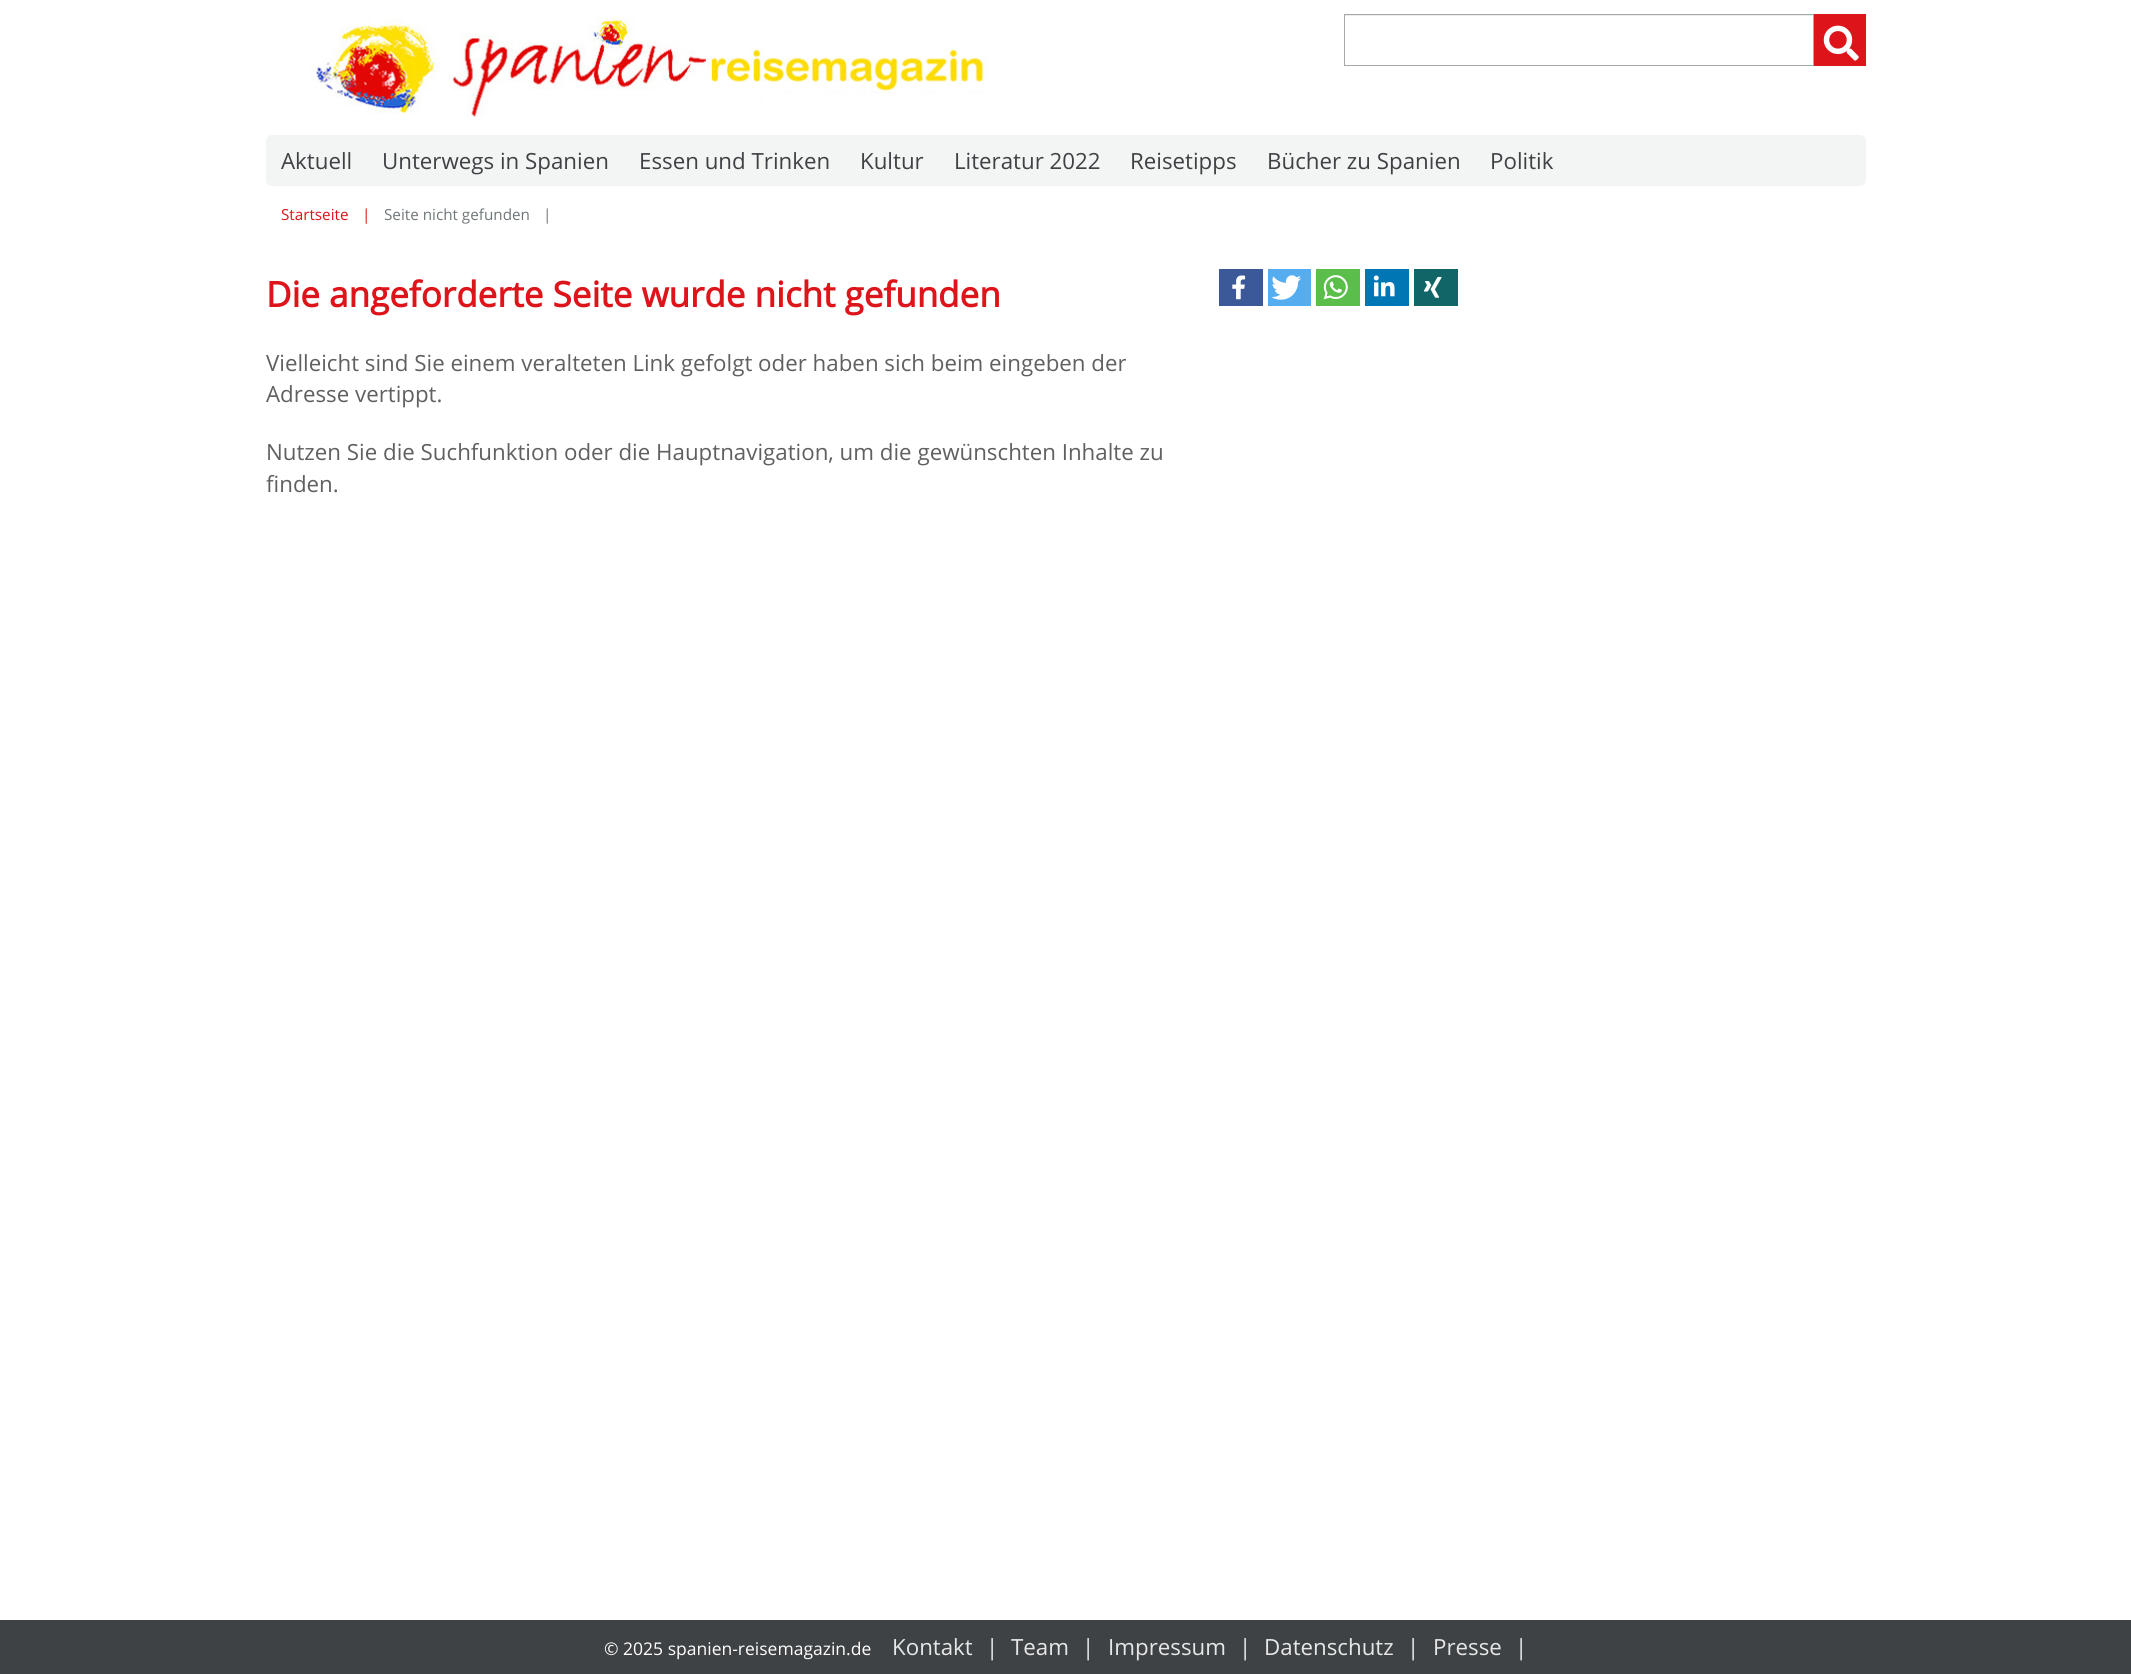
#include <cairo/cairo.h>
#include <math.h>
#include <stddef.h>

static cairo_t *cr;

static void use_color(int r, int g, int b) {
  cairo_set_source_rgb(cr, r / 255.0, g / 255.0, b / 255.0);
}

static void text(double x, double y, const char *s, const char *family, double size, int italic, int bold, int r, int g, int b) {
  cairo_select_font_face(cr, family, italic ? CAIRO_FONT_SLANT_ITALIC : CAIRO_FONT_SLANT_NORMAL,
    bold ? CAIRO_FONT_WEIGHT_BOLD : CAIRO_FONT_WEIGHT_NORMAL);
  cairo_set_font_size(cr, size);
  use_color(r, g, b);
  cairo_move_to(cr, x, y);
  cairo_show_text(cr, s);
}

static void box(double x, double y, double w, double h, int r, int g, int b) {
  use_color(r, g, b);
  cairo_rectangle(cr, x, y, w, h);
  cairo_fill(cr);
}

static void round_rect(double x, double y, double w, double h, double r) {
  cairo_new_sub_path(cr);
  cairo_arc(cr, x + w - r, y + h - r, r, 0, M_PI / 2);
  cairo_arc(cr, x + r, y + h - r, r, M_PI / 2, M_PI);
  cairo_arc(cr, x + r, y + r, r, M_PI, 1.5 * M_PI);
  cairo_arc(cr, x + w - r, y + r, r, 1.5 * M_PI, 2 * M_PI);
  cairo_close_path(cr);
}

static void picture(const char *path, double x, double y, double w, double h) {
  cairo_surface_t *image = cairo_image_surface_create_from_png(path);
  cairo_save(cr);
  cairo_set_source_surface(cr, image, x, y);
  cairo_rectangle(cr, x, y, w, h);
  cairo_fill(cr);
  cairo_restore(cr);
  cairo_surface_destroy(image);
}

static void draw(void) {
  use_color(255, 255, 255);
  cairo_paint(cr);
  picture("img_01.png", 309, 17, 679, 101);
  box(1345, 15, 468, 1, 236, 236, 236);
  cairo_rectangle(cr, 1344.5, 14.5, 469, 51);
  use_color(163, 168, 171);
  cairo_set_line_width(cr, 1);
  cairo_stroke(cr);
  box(1814, 14, 52, 52, 221, 20, 25);
  picture("img_02.png", 1823, 25, 36, 36);
  use_color(243, 244, 244);
  round_rect(266, 135, 1600, 51, 6);
  cairo_fill(cr);
  box(1219, 269, 44, 37, 59, 89, 152);
  picture("img_03.png", 1232, 275, 14, 25);
  box(1268, 269, 43, 37, 85, 172, 238);
  picture("img_04.png", 1271, 275, 31, 25);
  box(1316, 269, 44, 37, 92, 190, 74);
  picture("img_05.png", 1323, 275, 25, 25);
  box(1365, 269, 44, 37, 0, 119, 181);
  picture("img_06.png", 1373, 275, 22, 22);
  box(1414, 269, 44, 37, 18, 101, 103);
  picture("img_07.png", 1423, 276, 19, 22);
  box(0, 1620, 2131, 54, 62, 66, 68);
  text(281, 169, "Aktuell", "Open Sans", 22.3, 0, 0, 62, 66, 68);
  text(382, 169, "Unterwegs in Spanien", "Open Sans", 22.3, 0, 0, 62, 66, 68);
  text(639, 169, "Essen und Trinken", "Open Sans", 22.3, 0, 0, 62, 66, 68);
  text(860, 169, "Kultur", "Open Sans", 22.3, 0, 0, 62, 66, 68);
  text(954, 169, "Literatur 2022", "Open Sans", 22.3, 0, 0, 62, 66, 68);
  text(1130, 169, "Reisetipps", "Open Sans", 22.3, 0, 0, 62, 66, 68);
  text(1267, 169, "Bücher zu Spanien", "Open Sans", 22.3, 0, 0, 62, 66, 68);
  text(1490, 169, "Politik", "Open Sans", 22.3, 0, 0, 62, 66, 68);
  text(281, 220, "Startseite", "Open Sans", 15.25, 0, 0, 221, 20, 25);
  text(362, 220, "|", "Open Sans", 15.25, 0, 0, 221, 20, 25);
  text(384, 220, "Seite nicht gefunden", "Open Sans", 15.25, 0, 0, 111, 118, 121);
  text(543, 220, "|", "Open Sans", 15.25, 0, 0, 111, 118, 121);
  text(266, 307, "Die angeforderte Seite wurde nicht gefunden", "Open Sans", 35, 0, 1, 221, 20, 25);
  text(266, 371, "Vielleicht sind Sie einem veralteten Link gefolgt oder haben sich beim eingeben der", "Open Sans", 22.3, 0, 0, 97, 95, 95);
  text(266, 402, "Adresse vertippt.", "Open Sans", 22.3, 0, 0, 97, 95, 95);
  text(266, 460, "Nutzen Sie die Suchfunktion oder die Hauptnavigation, um die gewünschten Inhalte zu", "Open Sans", 22.3, 0, 0, 97, 95, 95);
  text(266, 492, "finden.", "Open Sans", 22.3, 0, 0, 97, 95, 95);
  text(604, 1655, "© 2025 spanien-reisemagazin.de", "Open Sans", 17.5, 0, 0, 255, 255, 255);
  text(892, 1655, "Kontakt", "Open Sans", 22.3, 0, 0, 230, 231, 232);
  text(986, 1655, "|", "Open Sans", 22.3, 0, 0, 230, 231, 232);
  text(1011, 1655, "Team", "Open Sans", 22.3, 0, 0, 230, 231, 232);
  text(1082, 1655, "|", "Open Sans", 22.3, 0, 0, 230, 231, 232);
  text(1108, 1655, "Impressum", "Open Sans", 22.3, 0, 0, 230, 231, 232);
  text(1239, 1655, "|", "Open Sans", 22.3, 0, 0, 230, 231, 232);
  text(1264, 1655, "Datenschutz", "Open Sans", 22.3, 0, 0, 230, 231, 232);
  text(1407, 1655, "|", "Open Sans", 22.3, 0, 0, 230, 231, 232);
  text(1433, 1655, "Presse", "Open Sans", 22.3, 0, 0, 230, 231, 232);
  text(1515, 1655, "|", "Open Sans", 22.3, 0, 0, 230, 231, 232);
}

int main(void) {
  cairo_surface_t *surface = cairo_image_surface_create(CAIRO_FORMAT_RGB24, 2131, 1674);
  cr = cairo_create(surface);
  cairo_font_options_t *options = cairo_font_options_create();
  cairo_font_options_set_hint_metrics(options, CAIRO_HINT_METRICS_OFF);
  cairo_font_options_set_hint_style(options, CAIRO_HINT_STYLE_NONE);
  cairo_set_font_options(cr, options);
  cairo_set_miter_limit(cr, 4);
  draw();
  cairo_surface_write_to_png(surface, "out.png");
  cairo_font_options_destroy(options);
  cairo_destroy(cr);
  cairo_surface_destroy(surface);
  return 0;
}
